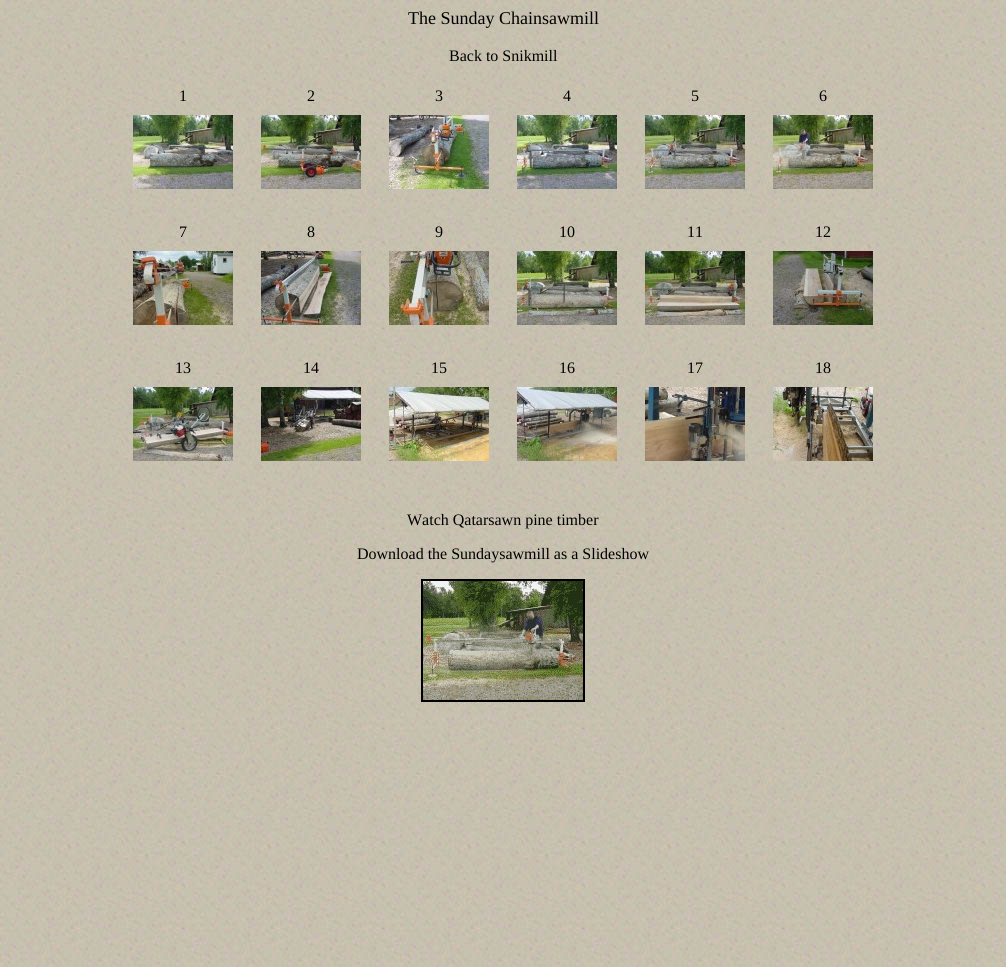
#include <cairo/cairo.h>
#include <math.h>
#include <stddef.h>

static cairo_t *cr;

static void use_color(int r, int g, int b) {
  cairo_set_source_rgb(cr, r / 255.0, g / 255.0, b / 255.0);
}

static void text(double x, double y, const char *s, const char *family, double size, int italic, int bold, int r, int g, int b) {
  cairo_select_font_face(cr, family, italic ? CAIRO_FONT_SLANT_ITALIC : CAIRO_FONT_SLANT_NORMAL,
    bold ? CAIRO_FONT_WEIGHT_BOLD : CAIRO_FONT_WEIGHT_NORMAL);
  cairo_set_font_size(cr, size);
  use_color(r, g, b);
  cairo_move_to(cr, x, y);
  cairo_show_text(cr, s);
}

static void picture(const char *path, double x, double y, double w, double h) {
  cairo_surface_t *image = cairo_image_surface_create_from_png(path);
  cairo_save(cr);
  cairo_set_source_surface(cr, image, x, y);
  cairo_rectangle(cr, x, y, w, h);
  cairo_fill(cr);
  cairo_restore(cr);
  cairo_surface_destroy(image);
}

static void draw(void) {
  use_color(255, 255, 255);
  cairo_paint(cr);
  picture("img_01.png", 0, 0, 1006, 967);
  picture("img_02.png", 133, 115, 100, 74);
  picture("img_03.png", 261, 115, 100, 74);
  picture("img_04.png", 389, 115, 100, 74);
  picture("img_05.png", 517, 115, 100, 74);
  picture("img_06.png", 645, 115, 100, 74);
  picture("img_07.png", 773, 115, 100, 74);
  picture("img_08.png", 133, 251, 100, 74);
  picture("img_09.png", 261, 251, 100, 74);
  picture("img_10.png", 389, 251, 100, 74);
  picture("img_11.png", 517, 251, 100, 74);
  picture("img_12.png", 645, 251, 100, 74);
  picture("img_13.png", 773, 251, 100, 74);
  picture("img_14.png", 133, 387, 100, 74);
  picture("img_15.png", 261, 387, 100, 74);
  picture("img_16.png", 389, 387, 100, 74);
  picture("img_17.png", 517, 387, 100, 74);
  picture("img_18.png", 645, 387, 100, 74);
  picture("img_19.png", 773, 387, 100, 74);
  cairo_rectangle(cr, 422, 580, 162, 121);
  use_color(0, 0, 0);
  cairo_stroke(cr);
  picture("img_20.png", 423, 581, 160, 119);
  text(408, 24, "The Sunday Chainsawmill", "Liberation Serif", 18, 0, 0, 0, 0, 0);
  text(449, 61, "Back to Snikmill", "Liberation Serif", 16, 0, 0, 0, 0, 0);
  text(179, 101, "1", "Liberation Serif", 16, 0, 0, 0, 0, 0);
  text(307, 101, "2", "Liberation Serif", 16, 0, 0, 0, 0, 0);
  text(435, 101, "3", "Liberation Serif", 16, 0, 0, 0, 0, 0);
  text(563, 101, "4", "Liberation Serif", 16, 0, 0, 0, 0, 0);
  text(691, 101, "5", "Liberation Serif", 16, 0, 0, 0, 0, 0);
  text(819, 101, "6", "Liberation Serif", 16, 0, 0, 0, 0, 0);
  text(179, 237, "7", "Liberation Serif", 16, 0, 0, 0, 0, 0);
  text(307, 237, "8", "Liberation Serif", 16, 0, 0, 0, 0, 0);
  text(435, 237, "9", "Liberation Serif", 16, 0, 0, 0, 0, 0);
  text(559, 237, "10", "Liberation Serif", 16, 0, 0, 0, 0, 0);
  text(687, 237, "11", "Liberation Serif", 16, 0, 0, 0, 0, 0);
  text(815, 237, "12", "Liberation Serif", 16, 0, 0, 0, 0, 0);
  text(175, 373, "13", "Liberation Serif", 16, 0, 0, 0, 0, 0);
  text(303, 373, "14", "Liberation Serif", 16, 0, 0, 0, 0, 0);
  text(431, 373, "15", "Liberation Serif", 16, 0, 0, 0, 0, 0);
  text(559, 373, "16", "Liberation Serif", 16, 0, 0, 0, 0, 0);
  text(687, 373, "17", "Liberation Serif", 16, 0, 0, 0, 0, 0);
  text(815, 373, "18", "Liberation Serif", 16, 0, 0, 0, 0, 0);
  text(407, 525, "Watch Qatarsawn pine timber", "Liberation Serif", 16, 0, 0, 0, 0, 0);
  text(357, 559, "Download the Sundaysawmill as a Slideshow", "Liberation Serif", 16, 0, 0, 0, 0, 0);
}

int main(void) {
  cairo_surface_t *surface = cairo_image_surface_create(CAIRO_FORMAT_RGB24, 1006, 967);
  cr = cairo_create(surface);
  cairo_font_options_t *options = cairo_font_options_create();
  cairo_font_options_set_hint_metrics(options, CAIRO_HINT_METRICS_OFF);
  cairo_font_options_set_hint_style(options, CAIRO_HINT_STYLE_NONE);
  cairo_set_font_options(cr, options);
  cairo_set_miter_limit(cr, 4);
  draw();
  cairo_surface_write_to_png(surface, "out.png");
  cairo_font_options_destroy(options);
  cairo_destroy(cr);
  cairo_surface_destroy(surface);
  return 0;
}
